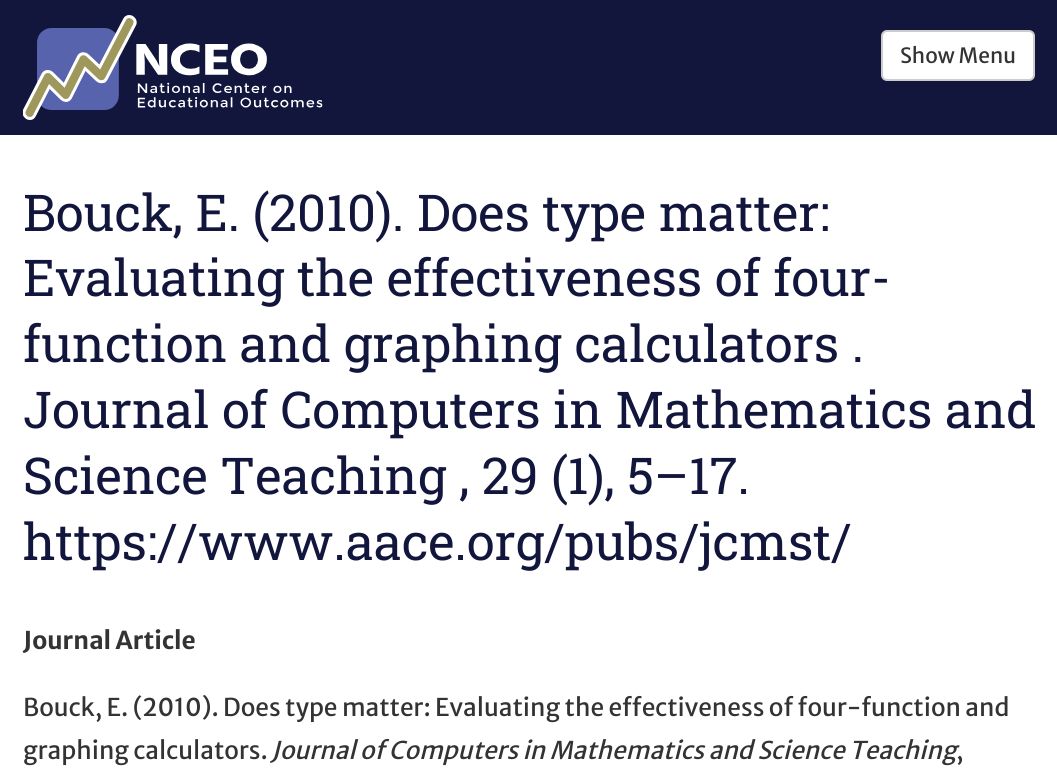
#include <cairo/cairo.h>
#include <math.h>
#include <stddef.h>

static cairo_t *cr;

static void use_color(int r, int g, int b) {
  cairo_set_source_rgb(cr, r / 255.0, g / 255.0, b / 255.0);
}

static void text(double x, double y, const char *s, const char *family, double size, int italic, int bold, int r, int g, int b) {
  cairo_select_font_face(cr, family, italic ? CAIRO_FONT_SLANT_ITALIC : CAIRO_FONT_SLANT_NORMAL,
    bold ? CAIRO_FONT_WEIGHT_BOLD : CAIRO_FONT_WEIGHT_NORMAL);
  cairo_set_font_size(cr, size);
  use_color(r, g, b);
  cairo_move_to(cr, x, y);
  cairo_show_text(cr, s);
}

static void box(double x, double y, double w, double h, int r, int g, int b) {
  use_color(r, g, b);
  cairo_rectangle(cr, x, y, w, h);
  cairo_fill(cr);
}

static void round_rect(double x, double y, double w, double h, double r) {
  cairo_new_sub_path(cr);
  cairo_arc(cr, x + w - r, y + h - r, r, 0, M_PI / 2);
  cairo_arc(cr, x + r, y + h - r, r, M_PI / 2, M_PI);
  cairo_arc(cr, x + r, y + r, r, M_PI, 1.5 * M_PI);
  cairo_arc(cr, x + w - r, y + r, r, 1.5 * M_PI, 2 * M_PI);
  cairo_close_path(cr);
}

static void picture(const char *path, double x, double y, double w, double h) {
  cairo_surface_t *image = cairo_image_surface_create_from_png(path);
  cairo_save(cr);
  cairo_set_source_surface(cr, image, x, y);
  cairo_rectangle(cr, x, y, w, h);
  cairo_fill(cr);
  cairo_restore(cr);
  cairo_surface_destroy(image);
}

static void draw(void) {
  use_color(255, 255, 255);
  cairo_paint(cr);
  box(0, 0, 1057, 135, 18, 22, 61);
  picture("img_01.png", 23, 15, 300, 105);
  use_color(255, 255, 255);
  round_rect(882, 31, 152, 49, 5);
  cairo_fill_preserve(cr);
  use_color(204, 204, 204);
  cairo_stroke(cr);
  text(900, 63, "Show Menu", "Merriweather Sans", 21, 0, 0, 51, 51, 51);
  text(23, 231, "Bouck, E. (2010). Does type matter:", "Roboto Slab", 50.75, 0, 0, 18, 22, 61);
  text(23, 296, "Evaluating the effectiveness of four-", "Roboto Slab", 50.75, 0, 0, 18, 22, 61);
  text(23, 362, "function and graphing calculators .", "Roboto Slab", 50.75, 0, 0, 18, 22, 61);
  text(23, 428, "Journal of Computers in Mathematics and", "Roboto Slab", 50.75, 0, 0, 18, 22, 61);
  text(23, 494, "Science Teaching , 29 (1), 5–17.", "Roboto Slab", 50.75, 0, 0, 18, 22, 61);
  text(23, 560, "https://www.aace.org/pubs/jcmst/", "Roboto Slab", 50.75, 0, 0, 18, 22, 61);
  text(23, 649, "Journal Article", "Merriweather Sans", 24.45, 0, 1, 51, 51, 51);
  text(23, 716, "Bouck, E. (2010). Does type matter: Evaluating the effectiveness of four-function and", "Merriweather Sans", 24.45, 0, 0, 51, 51, 51);
  text(23, 759, "graphing calculators.", "Merriweather Sans", 24.45, 0, 0, 51, 51, 51);
  text(271, 759, "Journal of Computers in Mathematics and Science Teaching", "Merriweather Sans", 24.45, 1, 0, 51, 51, 51);
  text(956, 759, ",", "Merriweather Sans", 24.45, 0, 0, 51, 51, 51);
}

int main(void) {
  cairo_surface_t *surface = cairo_image_surface_create(CAIRO_FORMAT_RGB24, 1057, 784);
  cr = cairo_create(surface);
  cairo_font_options_t *options = cairo_font_options_create();
  cairo_font_options_set_hint_metrics(options, CAIRO_HINT_METRICS_OFF);
  cairo_font_options_set_hint_style(options, CAIRO_HINT_STYLE_NONE);
  cairo_set_font_options(cr, options);
  cairo_set_miter_limit(cr, 4);
  draw();
  cairo_surface_write_to_png(surface, "out.png");
  cairo_font_options_destroy(options);
  cairo_destroy(cr);
  cairo_surface_destroy(surface);
  return 0;
}
